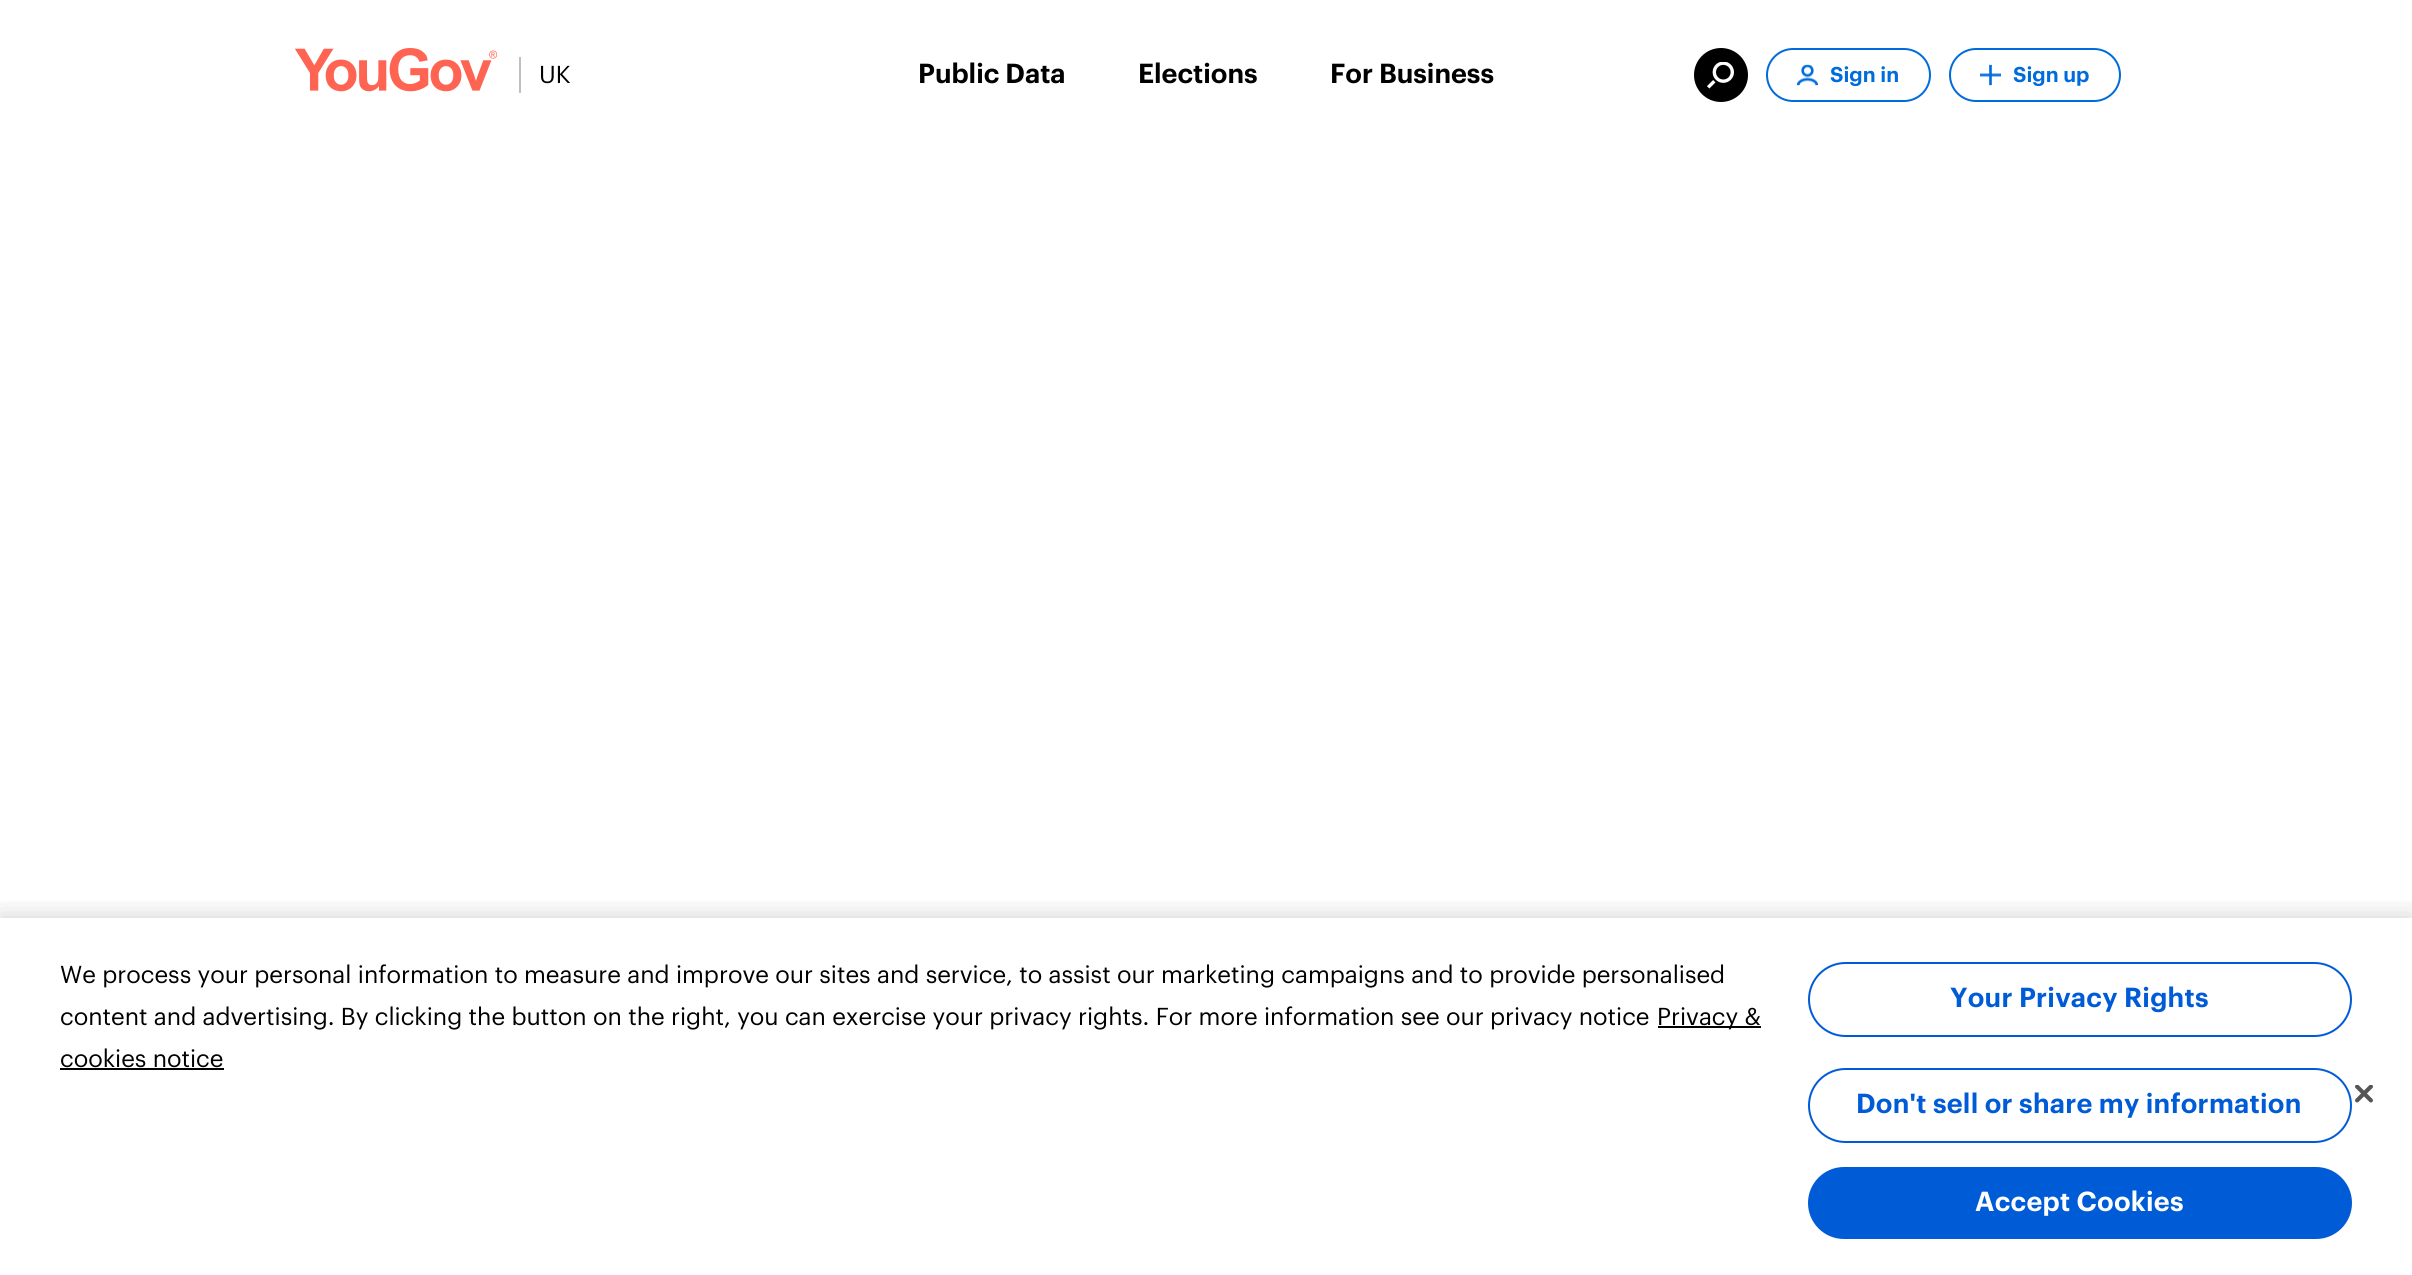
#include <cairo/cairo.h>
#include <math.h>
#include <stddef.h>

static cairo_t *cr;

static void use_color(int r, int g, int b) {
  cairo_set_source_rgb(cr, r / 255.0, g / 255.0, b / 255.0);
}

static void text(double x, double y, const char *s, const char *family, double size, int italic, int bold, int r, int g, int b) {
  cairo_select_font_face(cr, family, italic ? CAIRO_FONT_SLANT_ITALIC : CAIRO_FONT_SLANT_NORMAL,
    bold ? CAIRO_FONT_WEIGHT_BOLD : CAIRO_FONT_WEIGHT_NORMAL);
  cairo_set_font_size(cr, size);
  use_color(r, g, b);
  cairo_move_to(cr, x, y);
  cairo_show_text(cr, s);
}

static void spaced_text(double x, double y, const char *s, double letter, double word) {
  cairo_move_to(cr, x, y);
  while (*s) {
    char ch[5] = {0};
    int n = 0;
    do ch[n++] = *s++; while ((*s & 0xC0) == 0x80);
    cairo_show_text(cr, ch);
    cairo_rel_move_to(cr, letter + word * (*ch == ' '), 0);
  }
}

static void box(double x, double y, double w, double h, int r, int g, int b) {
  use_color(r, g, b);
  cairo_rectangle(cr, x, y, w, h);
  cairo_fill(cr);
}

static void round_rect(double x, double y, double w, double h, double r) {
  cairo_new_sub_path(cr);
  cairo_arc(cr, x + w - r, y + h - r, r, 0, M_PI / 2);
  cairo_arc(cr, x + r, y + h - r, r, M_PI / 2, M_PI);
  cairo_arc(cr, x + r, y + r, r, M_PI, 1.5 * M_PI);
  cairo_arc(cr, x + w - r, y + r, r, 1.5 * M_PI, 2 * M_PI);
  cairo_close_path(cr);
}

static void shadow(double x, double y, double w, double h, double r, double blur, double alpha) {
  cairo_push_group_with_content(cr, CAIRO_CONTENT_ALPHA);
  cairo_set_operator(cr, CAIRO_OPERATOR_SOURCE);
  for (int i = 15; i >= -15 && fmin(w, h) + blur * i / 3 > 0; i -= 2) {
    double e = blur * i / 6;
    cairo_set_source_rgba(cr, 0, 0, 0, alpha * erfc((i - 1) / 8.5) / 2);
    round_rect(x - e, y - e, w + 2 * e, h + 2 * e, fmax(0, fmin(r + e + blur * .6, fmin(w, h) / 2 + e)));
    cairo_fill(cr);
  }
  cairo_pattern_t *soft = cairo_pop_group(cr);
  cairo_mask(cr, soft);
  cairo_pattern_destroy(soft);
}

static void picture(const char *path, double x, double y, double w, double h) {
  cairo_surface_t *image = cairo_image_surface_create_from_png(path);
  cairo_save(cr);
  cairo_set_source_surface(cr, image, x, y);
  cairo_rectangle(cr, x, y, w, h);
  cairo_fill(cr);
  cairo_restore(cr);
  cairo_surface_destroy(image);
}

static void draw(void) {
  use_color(255, 255, 255);
  cairo_paint(cr);
  picture("img_01.png", 295, 48, 203, 44);
  box(519, 57, 2, 36, 191, 191, 191);
  use_color(0, 0, 0);
  cairo_arc(cr, 1721, 75, 27, 0, 2 * M_PI);
  cairo_fill(cr);
  picture("img_02.png", 1707, 62, 27, 27);
  round_rect(1767, 49, 163, 52, 26);
  use_color(0, 107, 219);
  cairo_stroke(cr);
  picture("img_03.png", 1797, 64, 21, 22);
  round_rect(1950, 49, 170, 52, 26);
  cairo_stroke(cr);
  picture("img_04.png", 1980, 64, 21, 22);
  cairo_save(cr);
  cairo_rectangle(cr, 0, 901, 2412, 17);
  cairo_clip(cr);
  use_color(0, 0, 0);
  shadow(0, 918, 2412, 357, 0, 13.5, 0.2);
  cairo_restore(cr);
  box(1658, 1026, 103, 2, 0, 0, 0);
  box(60, 1068, 164, 2, 0, 0, 0);
  round_rect(1809, 963, 542, 73, 36.5);
  use_color(0, 91, 215);
  cairo_stroke(cr);
  round_rect(1809, 1069, 542, 73, 36.5);
  cairo_stroke(cr);
  round_rect(1808, 1167, 544, 72, 36);
  cairo_fill(cr);
  picture("img_05.png", 2355, 1085, 18, 18);
  text(539, 83, "UK", "Graphik", 24, 0, 0, 0, 0, 0);
  text(918, 83, "Public Data", "Graphik SemiBold", 27, 0, 0, 0, 0, 0);
  text(1138, 83, "Elections", "Graphik SemiBold", 27, 0, 0, 0, 0, 0);
  text(1330, 83, "For Business", "Graphik SemiBold", 27, 0, 0, 0, 0, 0);
  text(1830, 82, "Sign in", "Graphik SemiBold", 21, 0, 0, 0, 107, 219);
  text(2013, 82, "Sign up", "Graphik SemiBold", 21, 0, 0, 0, 107, 219);
  text(60, 983, "We process your personal information to measure and improve our sites and service, to assist our marketing campaigns and to provide personalised", "Graphik", 24, 0, 0, 0, 0, 0);
  text(60, 1025, "content and advertising. By clicking the button on the right, you can exercise your privacy rights. For more information see our privacy notice", "Graphik", 24, 0, 0, 0, 0, 0);
  text(1657, 1025, "Privacy &", "Graphik", 24, 0, 0, 0, 0, 0);
  text(60, 1067, "cookies notice", "Graphik", 24, 0, 0, 0, 0, 0);
  cairo_select_font_face(cr, "Graphik SemiBold", CAIRO_FONT_SLANT_NORMAL, CAIRO_FONT_WEIGHT_NORMAL);
  cairo_set_font_size(cr, 27);
  use_color(0, 91, 215);
  spaced_text(1950, 1007, "Your Privacy Rights", 0.25, 0);
  spaced_text(1856, 1113, "Don't sell or share my information", 0.25, 0);
  use_color(255, 255, 255);
  spaced_text(1975, 1211, "Accept Cookies", 0.25, 0);
}

int main(void) {
  cairo_surface_t *surface = cairo_image_surface_create(CAIRO_FORMAT_RGB24, 2412, 1275);
  cr = cairo_create(surface);
  cairo_font_options_t *options = cairo_font_options_create();
  cairo_font_options_set_hint_metrics(options, CAIRO_HINT_METRICS_OFF);
  cairo_font_options_set_hint_style(options, CAIRO_HINT_STYLE_NONE);
  cairo_set_font_options(cr, options);
  cairo_set_miter_limit(cr, 4);
  draw();
  cairo_surface_write_to_png(surface, "out.png");
  cairo_font_options_destroy(options);
  cairo_destroy(cr);
  cairo_surface_destroy(surface);
  return 0;
}
